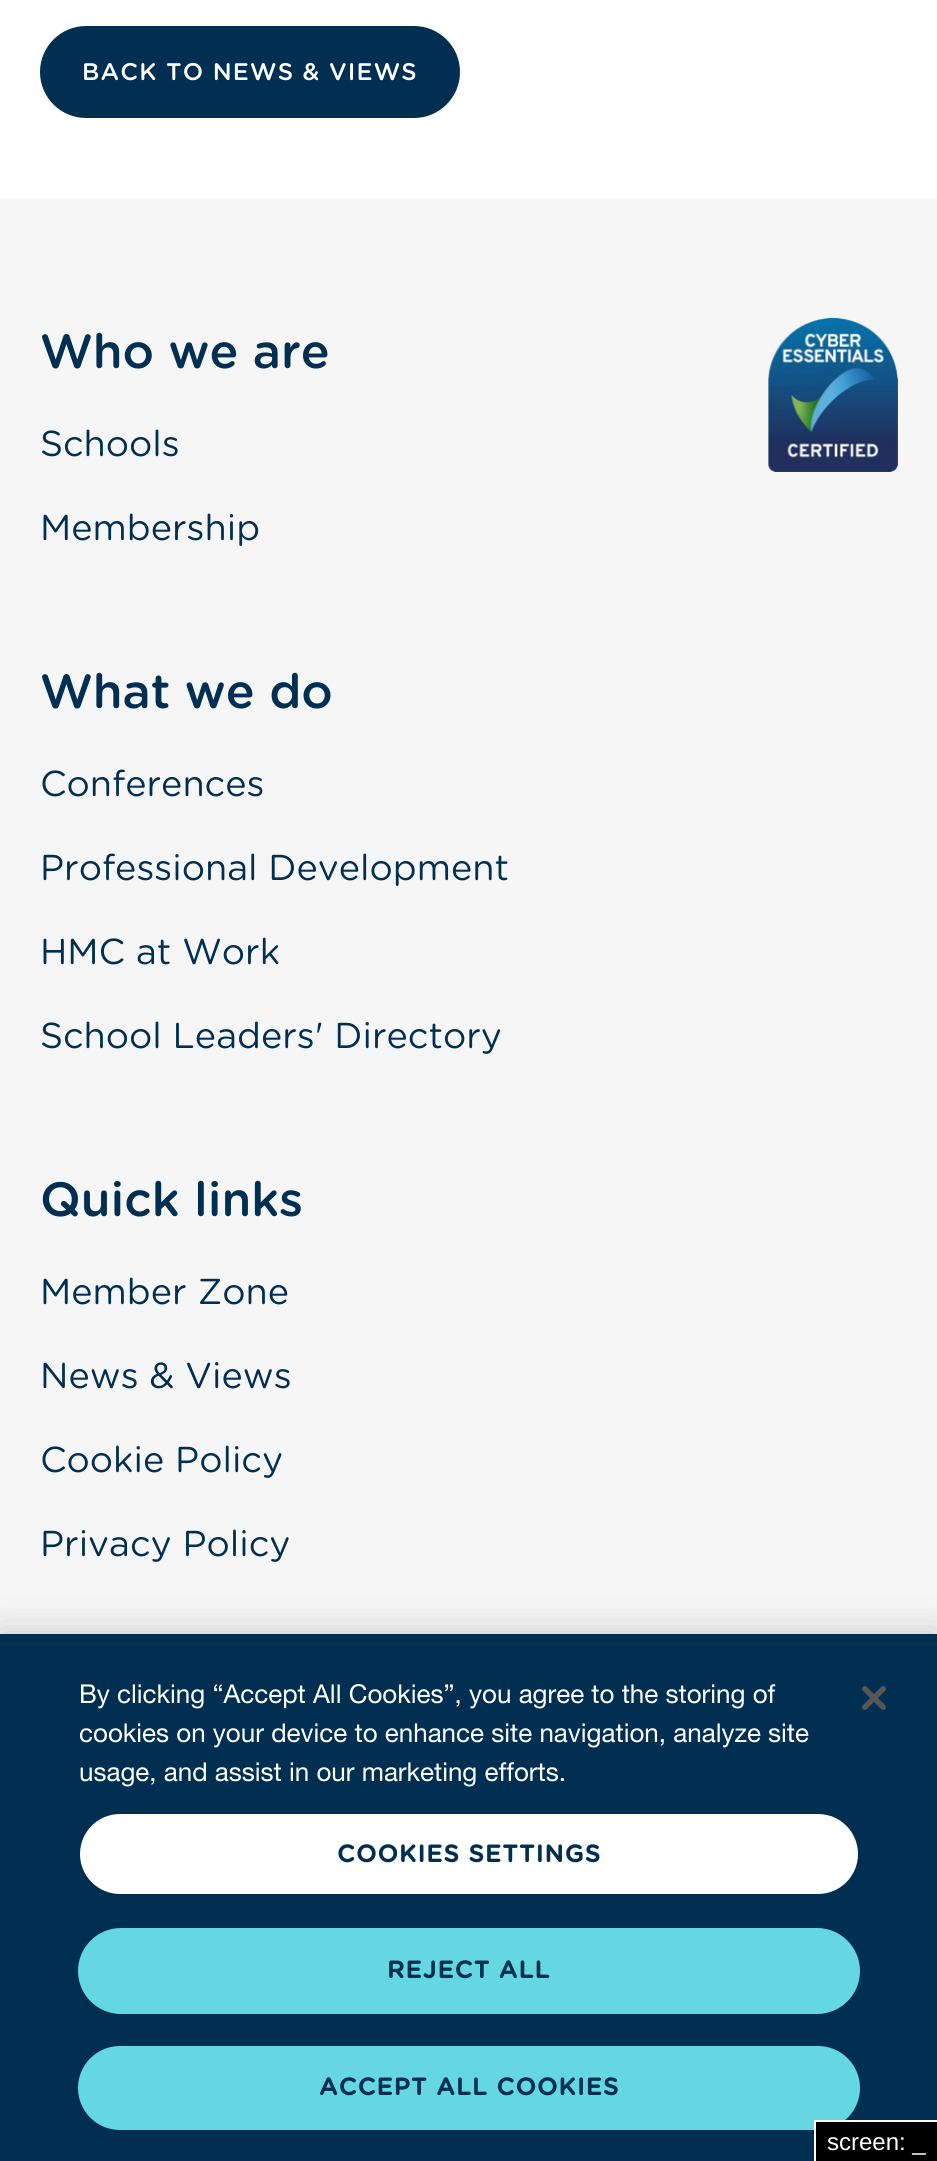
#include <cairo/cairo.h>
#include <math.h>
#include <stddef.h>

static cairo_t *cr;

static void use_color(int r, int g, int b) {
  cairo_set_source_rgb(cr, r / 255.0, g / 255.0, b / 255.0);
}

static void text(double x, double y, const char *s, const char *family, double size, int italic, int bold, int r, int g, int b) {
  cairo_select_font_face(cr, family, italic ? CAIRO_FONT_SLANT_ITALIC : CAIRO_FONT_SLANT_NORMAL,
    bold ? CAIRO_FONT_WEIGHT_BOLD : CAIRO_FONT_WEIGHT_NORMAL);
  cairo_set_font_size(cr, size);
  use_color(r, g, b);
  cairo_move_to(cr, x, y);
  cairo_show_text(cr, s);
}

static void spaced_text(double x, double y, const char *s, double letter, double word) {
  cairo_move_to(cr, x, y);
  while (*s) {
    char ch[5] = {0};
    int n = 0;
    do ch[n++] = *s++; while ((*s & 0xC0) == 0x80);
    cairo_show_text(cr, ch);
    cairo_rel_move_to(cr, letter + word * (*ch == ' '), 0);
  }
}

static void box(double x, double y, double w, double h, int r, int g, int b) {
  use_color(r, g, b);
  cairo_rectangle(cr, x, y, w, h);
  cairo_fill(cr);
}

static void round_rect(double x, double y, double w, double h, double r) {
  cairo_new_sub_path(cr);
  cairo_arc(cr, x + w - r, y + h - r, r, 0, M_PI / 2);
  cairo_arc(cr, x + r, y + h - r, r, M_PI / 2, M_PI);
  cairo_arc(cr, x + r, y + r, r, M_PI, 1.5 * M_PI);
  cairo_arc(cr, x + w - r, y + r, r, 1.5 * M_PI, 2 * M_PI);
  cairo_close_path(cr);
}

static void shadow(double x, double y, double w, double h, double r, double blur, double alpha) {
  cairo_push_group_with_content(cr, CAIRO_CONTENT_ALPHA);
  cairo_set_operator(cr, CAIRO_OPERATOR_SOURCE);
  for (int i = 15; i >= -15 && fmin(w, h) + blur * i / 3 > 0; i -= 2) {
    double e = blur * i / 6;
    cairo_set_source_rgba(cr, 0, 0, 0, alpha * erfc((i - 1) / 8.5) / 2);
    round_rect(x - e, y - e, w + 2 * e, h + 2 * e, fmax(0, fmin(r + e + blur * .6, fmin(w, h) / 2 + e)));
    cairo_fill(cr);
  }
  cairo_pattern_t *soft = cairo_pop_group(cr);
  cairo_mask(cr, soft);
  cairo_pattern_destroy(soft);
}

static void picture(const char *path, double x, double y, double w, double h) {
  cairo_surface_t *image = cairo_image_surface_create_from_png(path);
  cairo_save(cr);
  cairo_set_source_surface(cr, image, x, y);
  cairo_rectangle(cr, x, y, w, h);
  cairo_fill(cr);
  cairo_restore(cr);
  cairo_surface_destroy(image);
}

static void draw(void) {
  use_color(255, 255, 255);
  cairo_paint(cr);
  use_color(0, 47, 82);
  round_rect(41, 27, 418, 90, 45);
  cairo_fill_preserve(cr);
  cairo_stroke(cr);
  box(0, 198, 937, 1436, 246, 246, 246);
  picture("img_01.png", 768, 318, 130, 154);
  use_color(0, 0, 0);
  shadow(0, 1634, 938, 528, 0, 18, 0.2);
  box(0, 1634, 937, 527, 0, 47, 82);
  use_color(255, 255, 255);
  round_rect(79, 1813, 780, 82, 41);
  cairo_fill_preserve(cr);
  use_color(0, 47, 82);
  cairo_stroke(cr);
  use_color(100, 215, 225);
  round_rect(79, 1929, 780, 84, 42);
  cairo_fill_preserve(cr);
  cairo_stroke(cr);
  round_rect(79, 2047, 780, 82, 41);
  cairo_fill_preserve(cr);
  cairo_stroke(cr);
  picture("img_02.png", 862, 1686, 24, 24);
  cairo_rectangle(cr, 815, 2121, 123, 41);
  use_color(255, 255, 255);
  cairo_stroke(cr);
  box(816, 2122, 121, 39, 0, 0, 0);
  cairo_select_font_face(cr, "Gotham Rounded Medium", CAIRO_FONT_SLANT_NORMAL, CAIRO_FONT_WEIGHT_NORMAL);
  cairo_set_font_size(cr, 24);
  use_color(255, 255, 255);
  spaced_text(82, 80, "BACK TO NEWS & VIEWS", 1.2, 0);
  text(40, 368, "Who we are", "Gotham Rounded Medium", 48, 0, 0, 0, 47, 82);
  text(40, 456, "Schools", "Gotham Rounded", 36, 0, 0, 0, 47, 82);
  text(40, 540, "Membership", "Gotham Rounded", 36, 0, 0, 0, 47, 82);
  text(40, 708, "What we do", "Gotham Rounded Medium", 48, 0, 0, 0, 47, 82);
  text(40, 796, "Conferences", "Gotham Rounded", 36, 0, 0, 0, 47, 82);
  text(40, 880, "Professional Development", "Gotham Rounded", 36, 0, 0, 0, 47, 82);
  text(40, 964, "HMC at Work", "Gotham Rounded", 36, 0, 0, 0, 47, 82);
  text(40, 1048, "School Leaders' Directory", "Gotham Rounded", 36, 0, 0, 0, 47, 82);
  text(40, 1216, "Quick links", "Gotham Rounded Medium", 48, 0, 0, 0, 47, 82);
  text(40, 1304, "Member Zone", "Gotham Rounded", 36, 0, 0, 0, 47, 82);
  text(40, 1388, "News & Views", "Gotham Rounded", 36, 0, 0, 0, 47, 82);
  text(40, 1472, "Cookie Policy", "Gotham Rounded", 36, 0, 0, 0, 47, 82);
  text(40, 1556, "Privacy Policy", "Gotham Rounded", 36, 0, 0, 0, 47, 82);
  text(79, 1703, "By clicking “Accept All Cookies”, you agree to the storing of", "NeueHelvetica", 26, 0, 0, 255, 255, 255);
  text(79, 1742, "cookies on your device to enhance site navigation, analyze site", "NeueHelvetica", 26, 0, 0, 255, 255, 255);
  text(79, 1781, "usage, and assist in our marketing efforts.", "NeueHelvetica", 26, 0, 0, 255, 255, 255);
  cairo_select_font_face(cr, "Gotham Rounded", CAIRO_FONT_SLANT_NORMAL, CAIRO_FONT_WEIGHT_BOLD);
  cairo_set_font_size(cr, 24);
  use_color(0, 47, 82);
  spaced_text(337, 1862, "COOKIES SETTINGS", 1.2, 0);
  spaced_text(387, 1978, "REJECT ALL", 1.2, 0);
  spaced_text(319, 2095, "ACCEPT ALL COOKIES", 1.2, 0);
  text(827, 2150, "screen: _", "Liberation Sans", 24, 0, 0, 255, 255, 255);
}

int main(void) {
  cairo_surface_t *surface = cairo_image_surface_create(CAIRO_FORMAT_RGB24, 937, 2161);
  cr = cairo_create(surface);
  cairo_font_options_t *options = cairo_font_options_create();
  cairo_font_options_set_hint_metrics(options, CAIRO_HINT_METRICS_OFF);
  cairo_font_options_set_hint_style(options, CAIRO_HINT_STYLE_NONE);
  cairo_set_font_options(cr, options);
  cairo_set_miter_limit(cr, 4);
  draw();
  cairo_surface_write_to_png(surface, "out.png");
  cairo_font_options_destroy(options);
  cairo_destroy(cr);
  cairo_surface_destroy(surface);
  return 0;
}
